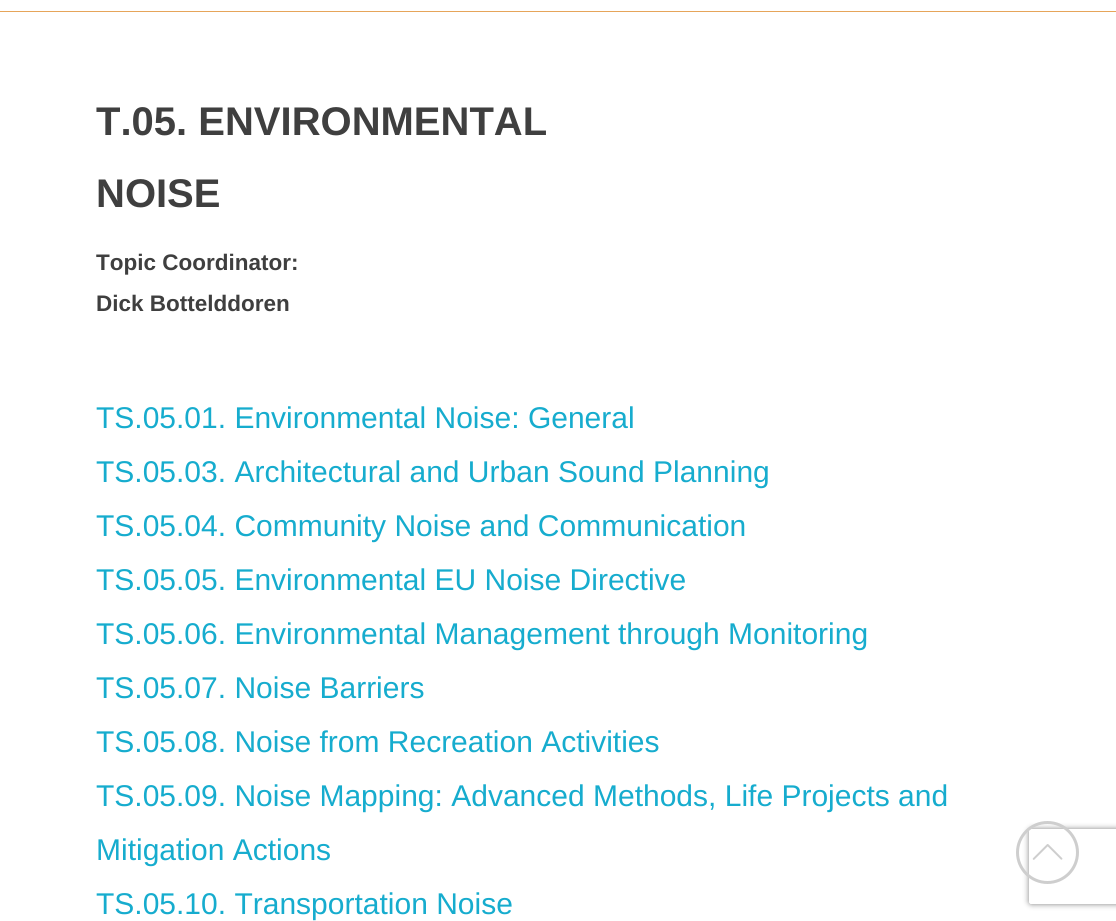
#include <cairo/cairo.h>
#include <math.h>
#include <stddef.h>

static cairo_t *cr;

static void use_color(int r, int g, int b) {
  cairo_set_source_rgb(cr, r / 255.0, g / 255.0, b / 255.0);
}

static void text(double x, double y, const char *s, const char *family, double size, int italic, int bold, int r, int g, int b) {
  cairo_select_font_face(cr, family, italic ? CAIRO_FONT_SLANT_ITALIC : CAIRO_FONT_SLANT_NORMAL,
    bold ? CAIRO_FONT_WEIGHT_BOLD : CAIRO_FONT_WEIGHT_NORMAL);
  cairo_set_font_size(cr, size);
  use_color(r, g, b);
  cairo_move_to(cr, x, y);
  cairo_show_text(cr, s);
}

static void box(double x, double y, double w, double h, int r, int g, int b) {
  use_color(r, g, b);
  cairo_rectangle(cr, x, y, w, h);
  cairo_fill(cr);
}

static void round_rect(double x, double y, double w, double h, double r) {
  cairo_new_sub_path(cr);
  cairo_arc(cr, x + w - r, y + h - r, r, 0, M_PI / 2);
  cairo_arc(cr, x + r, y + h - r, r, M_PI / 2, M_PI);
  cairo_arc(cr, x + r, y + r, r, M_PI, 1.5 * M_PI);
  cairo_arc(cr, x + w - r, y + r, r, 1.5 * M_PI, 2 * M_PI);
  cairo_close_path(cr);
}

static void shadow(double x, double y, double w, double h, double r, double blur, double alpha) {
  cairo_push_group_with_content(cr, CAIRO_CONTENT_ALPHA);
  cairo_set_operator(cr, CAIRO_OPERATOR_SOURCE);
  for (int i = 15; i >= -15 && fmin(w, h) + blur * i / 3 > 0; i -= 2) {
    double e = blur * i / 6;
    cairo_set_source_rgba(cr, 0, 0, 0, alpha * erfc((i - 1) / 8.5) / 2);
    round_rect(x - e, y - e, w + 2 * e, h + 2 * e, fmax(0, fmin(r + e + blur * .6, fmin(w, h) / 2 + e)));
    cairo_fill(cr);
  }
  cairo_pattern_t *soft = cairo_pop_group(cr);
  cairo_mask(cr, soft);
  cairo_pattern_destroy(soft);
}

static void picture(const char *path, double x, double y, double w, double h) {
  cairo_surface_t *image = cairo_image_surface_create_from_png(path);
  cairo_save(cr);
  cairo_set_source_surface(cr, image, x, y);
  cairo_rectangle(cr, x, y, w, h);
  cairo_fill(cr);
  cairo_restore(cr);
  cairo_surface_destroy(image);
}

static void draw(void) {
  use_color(255, 255, 255);
  cairo_paint(cr);
  box(0, 11, 1116, 1, 230, 165, 90);
  cairo_save(cr);
  cairo_set_fill_rule(cr, CAIRO_FILL_RULE_EVEN_ODD);
  cairo_new_path(cr);
  cairo_move_to(cr, 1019, 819);
  cairo_line_to(cr, 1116, 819);
  cairo_line_to(cr, 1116, 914);
  cairo_line_to(cr, 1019, 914);
  cairo_close_path(cr);
  cairo_move_to(cr, 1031.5, 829);
  cairo_line_to(cr, 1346.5, 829);
  cairo_curve_to(cr, 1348, 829, 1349, 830, 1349, 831.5);
  cairo_line_to(cr, 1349, 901.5);
  cairo_curve_to(cr, 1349, 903, 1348, 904, 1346.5, 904);
  cairo_line_to(cr, 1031.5, 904);
  cairo_curve_to(cr, 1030, 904, 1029, 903, 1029, 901.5);
  cairo_line_to(cr, 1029, 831.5);
  cairo_curve_to(cr, 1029, 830, 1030, 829, 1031.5, 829);
  cairo_close_path(cr);
  cairo_clip(cr);
  use_color(128, 128, 128);
  shadow(1029, 829, 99, 75, 2.5, 3, 1);
  cairo_restore(cr);
  cairo_arc(cr, 1047.5, 852.5, 30, 0, 2 * M_PI);
  use_color(206, 206, 206);
  cairo_set_line_width(cr, 3);
  cairo_stroke(cr);
  picture("img_01.png", 1032, 844, 31, 16);
  text(96, 135, "T.05. ENVIRONMENTAL", "Liberation Sans", 40, 0, 1, 63, 63, 63);
  text(96, 207, "NOISE", "Liberation Sans", 40, 0, 1, 63, 63, 63);
  text(96, 270, "Topic Coordinator:", "Liberation Sans", 22.5, 0, 1, 63, 63, 63);
  text(96, 311, "Dick Bottelddoren", "Liberation Sans", 22.5, 0, 1, 63, 63, 63);
  text(96, 428, "TS.05.01. Environmental Noise: General", "Liberation Sans", 30, 0, 0, 22, 172, 206);
  text(96, 482, "TS.05.03. Architectural and Urban Sound Planning", "Liberation Sans", 30, 0, 0, 22, 172, 206);
  text(96, 536, "TS.05.04. Community Noise and Communication", "Liberation Sans", 30, 0, 0, 22, 172, 206);
  text(96, 590, "TS.05.05. Environmental EU Noise Directive", "Liberation Sans", 30, 0, 0, 22, 172, 206);
  text(96, 644, "TS.05.06. Environmental Management through Monitoring", "Liberation Sans", 30, 0, 0, 22, 172, 206);
  text(96, 698, "TS.05.07. Noise Barriers", "Liberation Sans", 30, 0, 0, 22, 172, 206);
  text(96, 752, "TS.05.08. Noise from Recreation Activities", "Liberation Sans", 30, 0, 0, 22, 172, 206);
  text(96, 806, "TS.05.09. Noise Mapping: Advanced Methods, Life Projects and", "Liberation Sans", 30, 0, 0, 22, 172, 206);
  text(96, 860, "Mitigation Actions", "Liberation Sans", 30, 0, 0, 22, 172, 206);
  text(96, 914, "TS.05.10. Transportation Noise", "Liberation Sans", 30, 0, 0, 22, 172, 206);
}

int main(void) {
  cairo_surface_t *surface = cairo_image_surface_create(CAIRO_FORMAT_RGB24, 1116, 921);
  cr = cairo_create(surface);
  cairo_font_options_t *options = cairo_font_options_create();
  cairo_font_options_set_hint_metrics(options, CAIRO_HINT_METRICS_OFF);
  cairo_font_options_set_hint_style(options, CAIRO_HINT_STYLE_NONE);
  cairo_set_font_options(cr, options);
  cairo_set_miter_limit(cr, 4);
  draw();
  cairo_surface_write_to_png(surface, "out.png");
  cairo_font_options_destroy(options);
  cairo_destroy(cr);
  cairo_surface_destroy(surface);
  return 0;
}
